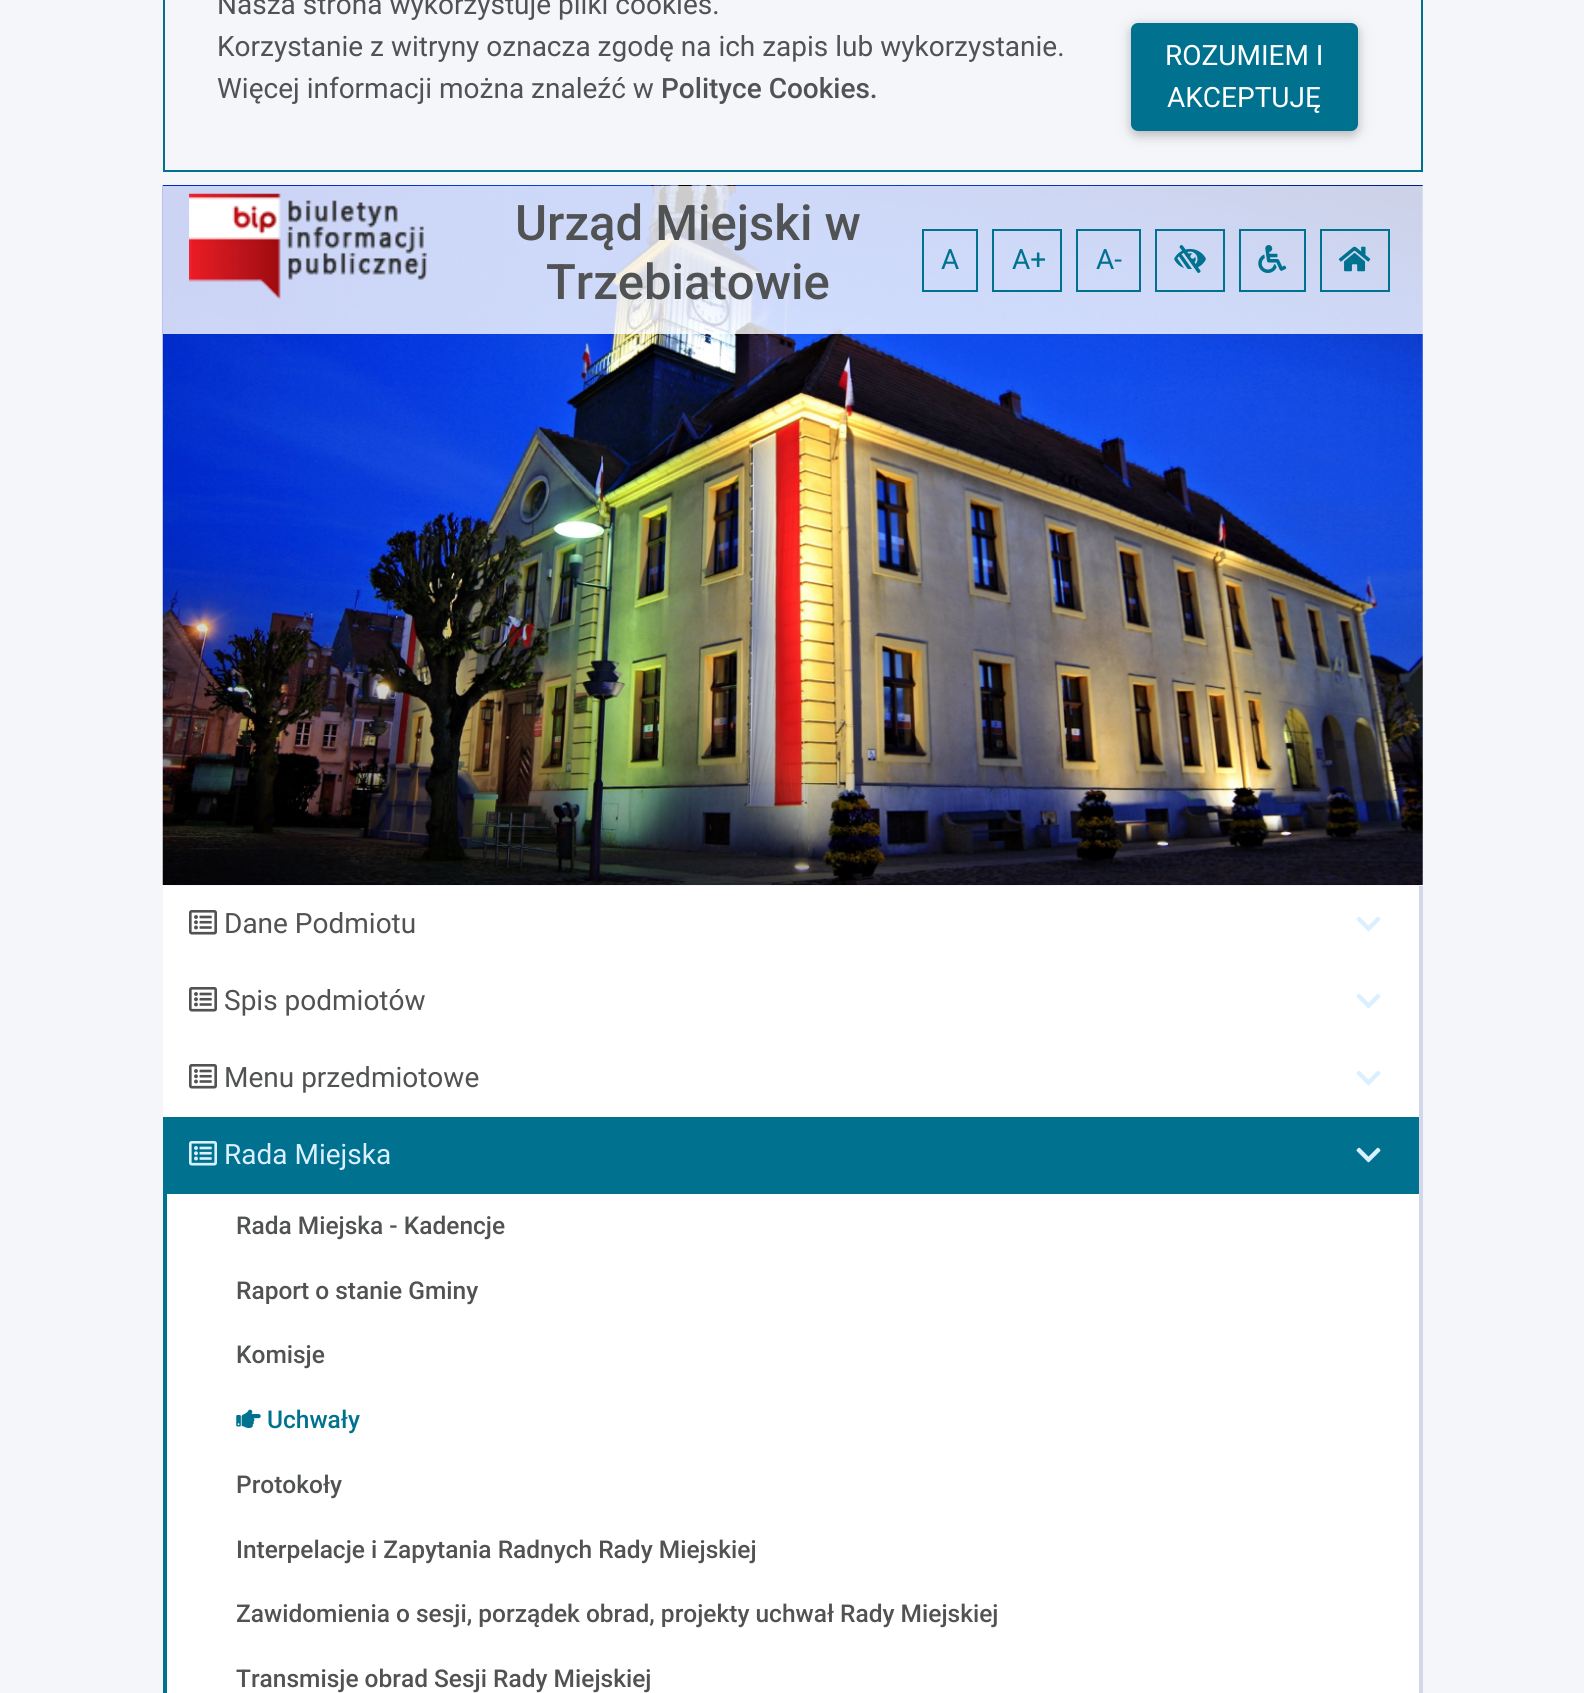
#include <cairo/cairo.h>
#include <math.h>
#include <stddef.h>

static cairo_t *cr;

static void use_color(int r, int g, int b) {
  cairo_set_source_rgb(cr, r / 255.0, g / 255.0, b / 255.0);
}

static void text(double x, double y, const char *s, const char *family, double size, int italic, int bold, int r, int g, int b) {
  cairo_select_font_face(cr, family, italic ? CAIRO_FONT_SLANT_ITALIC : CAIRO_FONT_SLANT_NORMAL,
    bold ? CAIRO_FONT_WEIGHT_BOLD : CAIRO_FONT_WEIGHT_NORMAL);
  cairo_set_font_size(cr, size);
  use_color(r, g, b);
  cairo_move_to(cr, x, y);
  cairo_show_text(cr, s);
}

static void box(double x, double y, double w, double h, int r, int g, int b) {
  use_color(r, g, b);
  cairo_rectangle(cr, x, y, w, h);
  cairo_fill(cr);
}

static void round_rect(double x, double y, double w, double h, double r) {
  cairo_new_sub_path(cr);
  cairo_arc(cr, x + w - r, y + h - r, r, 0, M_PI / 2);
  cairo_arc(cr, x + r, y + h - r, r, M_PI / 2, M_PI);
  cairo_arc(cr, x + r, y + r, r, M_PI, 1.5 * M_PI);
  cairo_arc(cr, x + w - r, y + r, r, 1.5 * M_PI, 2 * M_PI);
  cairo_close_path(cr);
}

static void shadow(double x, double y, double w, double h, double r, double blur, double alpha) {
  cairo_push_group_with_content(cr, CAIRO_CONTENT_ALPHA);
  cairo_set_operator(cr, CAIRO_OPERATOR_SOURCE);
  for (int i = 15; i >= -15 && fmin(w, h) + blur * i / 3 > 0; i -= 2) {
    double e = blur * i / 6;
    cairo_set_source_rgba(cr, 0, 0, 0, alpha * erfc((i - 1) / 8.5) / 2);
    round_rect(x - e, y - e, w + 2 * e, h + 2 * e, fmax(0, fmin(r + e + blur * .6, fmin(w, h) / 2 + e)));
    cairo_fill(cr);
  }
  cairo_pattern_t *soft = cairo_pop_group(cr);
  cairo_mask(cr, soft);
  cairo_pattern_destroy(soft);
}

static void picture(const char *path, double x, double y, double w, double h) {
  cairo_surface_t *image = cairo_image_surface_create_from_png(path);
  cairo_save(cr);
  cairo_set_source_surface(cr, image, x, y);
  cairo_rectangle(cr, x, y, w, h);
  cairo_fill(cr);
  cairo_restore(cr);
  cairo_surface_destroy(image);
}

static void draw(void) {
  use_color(245, 246, 250);
  cairo_paint(cr);
  cairo_rectangle(cr, 164, -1, 1258, 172);
  use_color(0, 114, 143);
  cairo_stroke(cr);
  use_color(0, 0, 0);
  shadow(1131, 26, 227, 109, 7, 9, 0.12);
  shadow(1131, 26, 227, 109, 7, 4.5, 0.16);
  use_color(0, 114, 143);
  round_rect(1132, 24, 225, 106, 6);
  cairo_fill_preserve(cr);
  cairo_stroke(cr);
  picture("img_01.png", 162, 185, 1261, 700);
  cairo_set_source_rgba(cr, 1, 1, 1, 0.8);
  cairo_rectangle(cr, 163, 186, 1260, 148);
  cairo_fill(cr);
  picture("img_02.png", 189, 193, 238, 106);
  cairo_rectangle(cr, 923, 230, 54, 61);
  use_color(0, 114, 143);
  cairo_stroke(cr);
  cairo_rectangle(cr, 993, 230, 68, 61);
  cairo_stroke(cr);
  cairo_rectangle(cr, 1077, 230, 63, 61);
  cairo_stroke(cr);
  cairo_rectangle(cr, 1156, 230, 68, 61);
  cairo_stroke(cr);
  picture("img_03.png", 1174, 245, 32, 28);
  cairo_rectangle(cr, 1240, 230, 65, 61);
  cairo_stroke(cr);
  picture("img_04.png", 1258, 245, 29, 28);
  cairo_rectangle(cr, 1321, 230, 68, 61);
  cairo_stroke(cr);
  picture("img_05.png", 1338, 246, 33, 26);
  box(1419, 886, 4, 807, 211, 215, 233);
  box(163, 886, 1256, 231, 255, 255, 255);
  picture("img_06.png", 189, 910, 28, 25);
  picture("img_07.png", 1356, 916, 25, 16);
  picture("img_06.png", 189, 987, 28, 25);
  picture("img_07.png", 1356, 993, 25, 16);
  picture("img_06.png", 189, 1064, 28, 25);
  picture("img_07.png", 1356, 1070, 25, 16);
  box(163, 1117, 1256, 77, 0, 114, 143);
  picture("img_08.png", 189, 1141, 28, 25);
  picture("img_09.png", 1356, 1147, 25, 16);
  box(167, 1194, 1252, 499, 255, 255, 255);
  box(163, 1194, 4, 499, 0, 114, 143);
  picture("img_10.png", 236, 1409, 25, 19);
  text(217, 14, "Nasza strona wykorzystuje pliki cookies.", "Roboto", 28, 0, 0, 81, 82, 83);
  text(217, 56, "Korzystanie z witryny oznacza zgodę na ich zapis lub wykorzystanie.", "Roboto", 28, 0, 0, 81, 82, 83);
  text(217, 98, "Więcej informacji można znaleźć w", "Roboto", 28, 0, 0, 81, 82, 83);
  text(661, 98, "Polityce Cookies.", "Roboto Medium", 28, 0, 0, 81, 82, 83);
  text(1165, 65, "ROZUMIEM I", "Roboto", 28, 0, 0, 255, 255, 255);
  text(1167, 107, "AKCEPTUJĘ", "Roboto", 28, 0, 0, 255, 255, 255);
  text(515, 240, "Urząd Miejski w", "Roboto Medium", 49, 0, 0, 81, 82, 83);
  text(546, 299, "Trzebiatowie", "Roboto Medium", 49, 0, 0, 81, 82, 83);
  text(941, 269, "A", "Roboto", 28, 0, 0, 0, 114, 143);
  text(1012, 269, "A+", "Roboto", 28, 0, 0, 0, 114, 143);
  text(1096, 269, "A-", "Roboto", 28, 0, 0, 0, 114, 143);
  text(224, 933, "Dane Podmiotu", "Roboto", 28, 0, 0, 81, 82, 83);
  text(224, 1010, "Spis podmiotów", "Roboto", 28, 0, 0, 81, 82, 83);
  text(224, 1087, "Menu przedmiotowe", "Roboto", 28, 0, 0, 81, 82, 83);
  text(224, 1164, "Rada Miejska", "Roboto", 28, 0, 0, 218, 239, 255);
  text(236, 1234, "Rada Miejska - Kadencje", "Roboto Medium", 24.5, 0, 0, 81, 82, 83);
  text(236, 1299, "Raport o stanie Gminy", "Roboto Medium", 24.5, 0, 0, 81, 82, 83);
  text(236, 1363, "Komisje", "Roboto Medium", 24.5, 0, 0, 81, 82, 83);
  text(267, 1428, "Uchwały", "Roboto Medium", 24.5, 0, 0, 0, 114, 143);
  text(236, 1493, "Protokoły", "Roboto Medium", 24.5, 0, 0, 81, 82, 83);
  text(236, 1558, "Interpelacje i Zapytania Radnych Rady Miejskiej", "Roboto Medium", 24.5, 0, 0, 81, 82, 83);
  text(236, 1622, "Zawidomienia o sesji, porządek obrad, projekty uchwał Rady Miejskiej", "Roboto Medium", 24.5, 0, 0, 81, 82, 83);
  text(236, 1687, "Transmisje obrad Sesji Rady Miejskiej", "Roboto Medium", 24.5, 0, 0, 81, 82, 83);
}

int main(void) {
  cairo_surface_t *surface = cairo_image_surface_create(CAIRO_FORMAT_RGB24, 1584, 1693);
  cr = cairo_create(surface);
  cairo_font_options_t *options = cairo_font_options_create();
  cairo_font_options_set_hint_metrics(options, CAIRO_HINT_METRICS_OFF);
  cairo_font_options_set_hint_style(options, CAIRO_HINT_STYLE_NONE);
  cairo_set_font_options(cr, options);
  cairo_set_miter_limit(cr, 4);
  draw();
  cairo_surface_write_to_png(surface, "out.png");
  cairo_font_options_destroy(options);
  cairo_destroy(cr);
  cairo_surface_destroy(surface);
  return 0;
}
